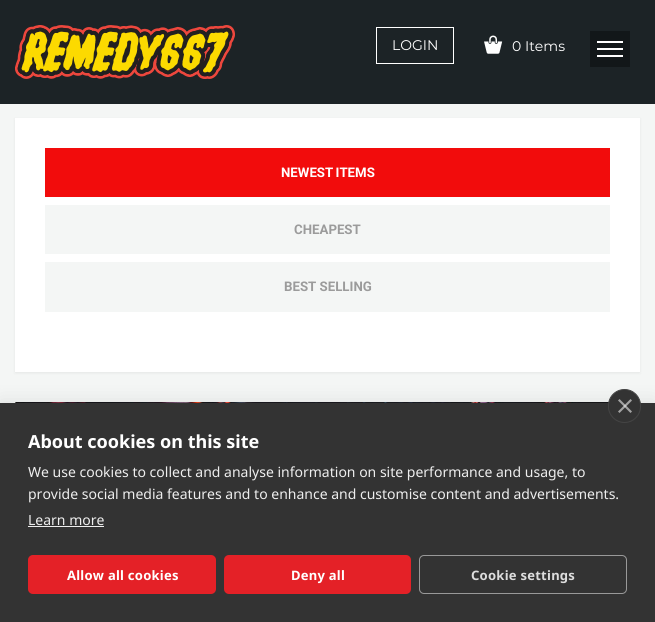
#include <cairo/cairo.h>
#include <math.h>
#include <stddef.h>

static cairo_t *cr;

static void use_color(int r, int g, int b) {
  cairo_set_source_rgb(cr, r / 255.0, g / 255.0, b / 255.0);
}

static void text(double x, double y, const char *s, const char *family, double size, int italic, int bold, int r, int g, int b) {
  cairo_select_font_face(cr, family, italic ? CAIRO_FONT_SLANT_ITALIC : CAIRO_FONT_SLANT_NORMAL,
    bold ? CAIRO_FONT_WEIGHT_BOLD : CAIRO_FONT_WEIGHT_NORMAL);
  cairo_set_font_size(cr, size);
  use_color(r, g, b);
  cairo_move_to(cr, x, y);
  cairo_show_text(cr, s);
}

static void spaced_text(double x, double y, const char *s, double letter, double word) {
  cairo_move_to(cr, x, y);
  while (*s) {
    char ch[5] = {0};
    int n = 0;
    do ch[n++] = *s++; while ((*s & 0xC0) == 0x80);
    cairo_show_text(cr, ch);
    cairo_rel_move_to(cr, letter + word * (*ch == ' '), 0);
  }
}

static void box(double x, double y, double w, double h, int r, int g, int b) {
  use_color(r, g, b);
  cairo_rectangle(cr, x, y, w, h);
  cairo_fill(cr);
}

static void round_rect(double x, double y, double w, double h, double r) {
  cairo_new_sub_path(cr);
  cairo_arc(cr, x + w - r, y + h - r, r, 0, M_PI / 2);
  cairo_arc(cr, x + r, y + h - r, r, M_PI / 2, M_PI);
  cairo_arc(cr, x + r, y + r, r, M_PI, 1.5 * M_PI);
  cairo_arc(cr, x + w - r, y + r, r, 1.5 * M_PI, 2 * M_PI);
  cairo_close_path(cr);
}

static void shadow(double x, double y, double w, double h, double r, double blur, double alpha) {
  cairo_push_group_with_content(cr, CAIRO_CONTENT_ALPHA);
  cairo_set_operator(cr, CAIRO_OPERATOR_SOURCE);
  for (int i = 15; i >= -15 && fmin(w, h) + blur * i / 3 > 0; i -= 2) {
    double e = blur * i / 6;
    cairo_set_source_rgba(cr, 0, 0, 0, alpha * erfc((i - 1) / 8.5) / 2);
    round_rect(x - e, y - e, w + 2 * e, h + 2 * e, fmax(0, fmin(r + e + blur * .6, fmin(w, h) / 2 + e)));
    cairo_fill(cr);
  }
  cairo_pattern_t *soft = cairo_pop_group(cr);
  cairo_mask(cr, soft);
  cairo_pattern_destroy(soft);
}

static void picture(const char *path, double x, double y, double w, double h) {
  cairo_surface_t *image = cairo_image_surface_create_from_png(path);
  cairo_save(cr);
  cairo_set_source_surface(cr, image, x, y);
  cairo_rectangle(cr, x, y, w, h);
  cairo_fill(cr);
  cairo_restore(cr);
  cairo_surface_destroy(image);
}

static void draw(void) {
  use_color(244, 246, 245);
  cairo_paint(cr);
  box(0, 0, 655, 104, 28, 35, 38);
  picture("img_01.png", 15, 25, 220, 54);
  cairo_rectangle(cr, 376.5, 27.5, 77, 36);
  use_color(255, 255, 255);
  cairo_set_line_width(cr, 1);
  cairo_stroke(cr);
  picture("img_02.png", 484, 35, 19, 19);
  box(590, 31, 40, 36, 18, 23, 25);
  box(597, 41, 26, 2, 255, 255, 255);
  box(597, 48, 26, 2, 255, 255, 255);
  box(597, 55, 26, 2, 255, 255, 255);
  use_color(0, 0, 0);
  shadow(15, 119, 625, 254, 0, 1.5, 0.06);
  box(15, 118, 625, 254, 255, 255, 255);
  box(45, 148, 565, 49, 242, 12, 12);
  box(45, 205, 565, 49, 244, 246, 245);
  box(45, 262, 565, 50, 244, 246, 245);
  picture("img_03.png", 15, 402, 594, 1);
  use_color(0, 0, 0);
  shadow(0, 403, 655, 219, 0, 10, 0.1);
  box(0, 403, 655, 219, 51, 51, 51);
  round_rect(608.5, 389.5, 32, 33, 16);
  cairo_fill_preserve(cr);
  use_color(68, 68, 68);
  cairo_stroke(cr);
  use_color(163, 163, 163);
  cairo_new_path(cr);
  cairo_move_to(cr, 618, 411.5);
  cairo_line_to(cr, 630.5, 399);
  cairo_line_to(cr, 632, 400.5);
  cairo_line_to(cr, 619.5, 413);
  cairo_close_path(cr);
  cairo_fill(cr);
  cairo_set_source_rgba(cr, 0.933, 0.933, 0.933, 0.6);
  cairo_new_path(cr);
  cairo_move_to(cr, 619.5, 399);
  cairo_line_to(cr, 632, 411.5);
  cairo_line_to(cr, 630.5, 413);
  cairo_line_to(cr, 618, 400.5);
  cairo_close_path(cr);
  cairo_fill(cr);
  box(28, 526, 76, 1, 238, 238, 238);
  use_color(228, 33, 39);
  round_rect(28, 555, 188, 39, 5);
  cairo_fill(cr);
  round_rect(224, 555, 187, 39, 5);
  cairo_fill(cr);
  round_rect(419.5, 555.5, 207, 38, 4.5);
  use_color(153, 153, 153);
  cairo_stroke(cr);
  text(392, 50, "LOGIN", "Montserrat", 14, 0, 0, 255, 255, 255);
  text(512, 51, "0 Items", "Montserrat", 14, 0, 0, 255, 255, 255);
  cairo_select_font_face(cr, "Roboto", CAIRO_FONT_SLANT_NORMAL, CAIRO_FONT_WEIGHT_BOLD);
  cairo_set_font_size(cr, 13.25);
  spaced_text(281, 177, "NEWEST ITEMS", 0, -1);
  text(294, 234, "CHEAPEST", "Roboto", 13.25, 0, 1, 155, 155, 155);
  text(284, 291, "BEST SELLING", "Roboto", 13.25, 0, 1, 155, 155, 155);
  text(28, 448, "About cookies on this site", "Noto Sans", 18, 0, 1, 255, 255, 255);
  text(28, 477, "We use cookies to collect and analyse information on site performance and usage, to", "Noto Sans", 14, 0, 0, 238, 238, 238);
  text(28, 499, "provide social media features and to enhance and customise content and advertisements.", "Noto Sans", 14, 0, 0, 238, 238, 238);
  text(28, 525, "Learn more", "Noto Sans", 14, 0, 0, 238, 238, 238);
  cairo_select_font_face(cr, "Noto Sans", CAIRO_FONT_SLANT_NORMAL, CAIRO_FONT_WEIGHT_BOLD);
  cairo_set_font_size(cr, 13);
  use_color(255, 255, 255);
  spaced_text(67, 580, "Allow all cookies", 0.25, 0);
  spaced_text(291, 580, "Deny all", 0.25, 0);
  use_color(221, 221, 221);
  spaced_text(471, 580, "Cookie settings", 0.25, 0);
}

int main(void) {
  cairo_surface_t *surface = cairo_image_surface_create(CAIRO_FORMAT_RGB24, 655, 622);
  cr = cairo_create(surface);
  cairo_font_options_t *options = cairo_font_options_create();
  cairo_font_options_set_hint_metrics(options, CAIRO_HINT_METRICS_OFF);
  cairo_font_options_set_hint_style(options, CAIRO_HINT_STYLE_NONE);
  cairo_set_font_options(cr, options);
  cairo_set_miter_limit(cr, 4);
  draw();
  cairo_surface_write_to_png(surface, "out.png");
  cairo_font_options_destroy(options);
  cairo_destroy(cr);
  cairo_surface_destroy(surface);
  return 0;
}
